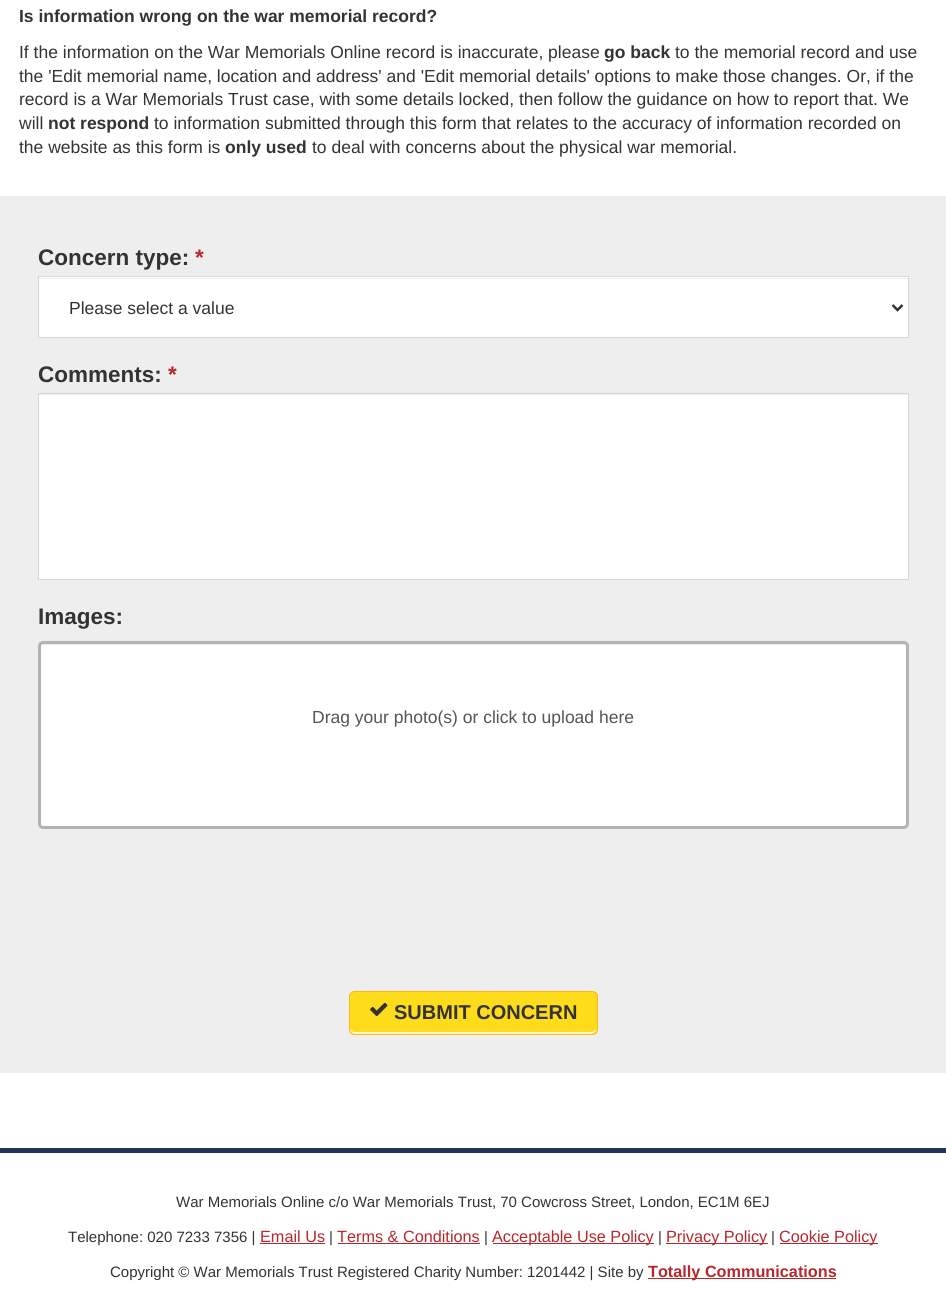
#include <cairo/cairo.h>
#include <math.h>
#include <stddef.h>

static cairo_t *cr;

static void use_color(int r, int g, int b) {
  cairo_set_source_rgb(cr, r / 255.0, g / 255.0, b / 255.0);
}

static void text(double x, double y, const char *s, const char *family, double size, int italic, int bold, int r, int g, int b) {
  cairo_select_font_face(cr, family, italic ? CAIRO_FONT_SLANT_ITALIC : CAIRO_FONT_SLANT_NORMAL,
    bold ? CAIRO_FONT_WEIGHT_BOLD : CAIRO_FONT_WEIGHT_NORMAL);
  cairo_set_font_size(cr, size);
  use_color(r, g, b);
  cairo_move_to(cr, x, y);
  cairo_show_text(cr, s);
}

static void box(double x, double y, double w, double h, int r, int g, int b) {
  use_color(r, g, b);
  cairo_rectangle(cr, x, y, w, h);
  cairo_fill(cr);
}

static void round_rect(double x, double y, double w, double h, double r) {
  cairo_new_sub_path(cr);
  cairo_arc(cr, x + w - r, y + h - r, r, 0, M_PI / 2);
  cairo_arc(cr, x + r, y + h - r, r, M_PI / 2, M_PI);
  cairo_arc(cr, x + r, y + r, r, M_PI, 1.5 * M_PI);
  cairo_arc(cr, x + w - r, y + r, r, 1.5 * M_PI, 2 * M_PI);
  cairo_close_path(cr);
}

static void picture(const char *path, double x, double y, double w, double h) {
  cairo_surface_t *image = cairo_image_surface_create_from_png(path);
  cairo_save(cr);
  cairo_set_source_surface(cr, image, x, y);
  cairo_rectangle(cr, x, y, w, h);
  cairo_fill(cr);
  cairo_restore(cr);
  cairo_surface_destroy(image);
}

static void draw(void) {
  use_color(255, 255, 255);
  cairo_paint(cr);
  box(0, 196, 946, 877, 238, 238, 238);
  box(39, 277, 869, 60, 255, 255, 255);
  box(39, 278, 869, 1, 236, 236, 236);
  cairo_rectangle(cr, 38.5, 276.5, 870, 61);
  use_color(214, 214, 214);
  cairo_set_line_width(cr, 1);
  cairo_stroke(cr);
  cairo_new_path(cr);
  cairo_move_to(cr, 892.5, 305);
  cairo_line_to(cr, 897.5, 310);
  cairo_line_to(cr, 902.5, 305);
  use_color(51, 51, 51);
  cairo_set_line_width(cr, 2.5);
  cairo_stroke(cr);
  box(39, 395, 869, 184, 255, 255, 255);
  cairo_rectangle(cr, 38.5, 393.5, 870, 186);
  use_color(214, 214, 214);
  cairo_set_line_width(cr, 1);
  cairo_stroke(cr);
  use_color(255, 255, 255);
  round_rect(38, 641, 871, 188, 5);
  cairo_fill(cr);
  use_color(236, 236, 236);
  cairo_new_path(cr);
  cairo_move_to(cr, 42, 645);
  cairo_line_to(cr, 904, 645);
  cairo_curve_to(cr, 905, 645, 906, 646, 906, 648);
  cairo_line_to(cr, 906, 646);
  cairo_curve_to(cr, 906, 645, 905, 644, 904, 644);
  cairo_line_to(cr, 42, 644);
  cairo_curve_to(cr, 41, 644, 40, 645, 40, 646);
  cairo_line_to(cr, 40, 648);
  cairo_curve_to(cr, 40, 646, 41, 645, 42, 645);
  cairo_close_path(cr);
  cairo_fill(cr);
  round_rect(39.5, 642.5, 868, 185, 3.5);
  cairo_set_source_rgba(cr, 0, 0, 0, 0.3);
  cairo_set_line_width(cr, 3);
  cairo_stroke(cr);
  use_color(254, 220, 28);
  round_rect(349, 991, 249, 44, 6);
  cairo_fill(cr);
  use_color(255, 248, 210);
  cairo_new_path(cr);
  cairo_move_to(cr, 350, 1028);
  cairo_line_to(cr, 350, 1029);
  cairo_curve_to(cr, 350, 1032, 352, 1034, 355, 1034);
  cairo_line_to(cr, 591, 1034);
  cairo_curve_to(cr, 594, 1034, 596, 1032, 596, 1029);
  cairo_line_to(cr, 596, 1028);
  cairo_curve_to(cr, 596, 1030, 594, 1032, 591, 1032);
  cairo_line_to(cr, 355, 1032);
  cairo_curve_to(cr, 352, 1032, 350, 1030, 350, 1028);
  cairo_close_path(cr);
  cairo_fill(cr);
  round_rect(349.5, 991.5, 248, 43, 5.5);
  use_color(253, 184, 19);
  cairo_set_line_width(cr, 1);
  cairo_stroke(cr);
  picture("img_01.png", 370, 1002, 18, 15);
  box(0, 1148, 946, 5, 37, 51, 85);
  box(260, 1243, 65, 1, 184, 39, 42);
  box(338, 1243, 142, 1, 184, 39, 42);
  box(493, 1243, 161, 1, 184, 39, 42);
  box(666, 1243, 102, 1, 184, 39, 42);
  box(780, 1243, 98, 1, 184, 39, 42);
  box(648, 1278, 188, 1, 184, 39, 42);
  text(19, 22, "Is information wrong on the war memorial record?", "Liberation Sans", 17.5, 0, 1, 51, 51, 51);
  text(19, 58, "If the information on the War Memorials Online record is inaccurate, please", "Liberation Sans", 17.5, 0, 0, 51, 51, 51);
  text(604, 58, "go back", "Liberation Sans", 17.5, 0, 1, 51, 51, 51);
  text(675, 58, "to the memorial record and use", "Liberation Sans", 17.5, 0, 0, 51, 51, 51);
  text(19, 82, "the 'Edit memorial name, location and address' and 'Edit memorial details' options to make those changes. Or, if the", "Liberation Sans", 17.5, 0, 0, 51, 51, 51);
  text(19, 105, "record is a War Memorials Trust case, with some details locked, then follow the guidance on how to report that. We", "Liberation Sans", 17.5, 0, 0, 51, 51, 51);
  text(19, 129, "will", "Liberation Sans", 17.5, 0, 0, 51, 51, 51);
  text(48, 129, "not respond", "Liberation Sans", 17.5, 0, 1, 51, 51, 51);
  text(154, 129, "to information submitted through this form that relates to the accuracy of information recorded on", "Liberation Sans", 17.5, 0, 0, 51, 51, 51);
  text(19, 153, "the website as this form is", "Liberation Sans", 17.5, 0, 0, 51, 51, 51);
  text(225, 153, "only used", "Liberation Sans", 17.5, 0, 1, 51, 51, 51);
  text(312, 153, "to deal with concerns about the physical war memorial.", "Liberation Sans", 17.5, 0, 0, 51, 51, 51);
  text(38, 265, "Concern type:", "Liberation Sans", 22.5, 0, 1, 51, 51, 51);
  text(195, 265, "*", "Liberation Sans", 22.5, 0, 1, 184, 39, 42);
  text(69, 314, "Please select a value", "Liberation Sans", 17.5, 0, 0, 51, 51, 51);
  text(38, 382, "Comments:", "Liberation Sans", 22.5, 0, 1, 51, 51, 51);
  text(168, 382, "*", "Liberation Sans", 22.5, 0, 1, 184, 39, 42);
  text(38, 624, "Images:", "Liberation Sans", 22.5, 0, 1, 51, 51, 51);
  text(312, 723, "Drag your photo(s) or click to upload here", "Liberation Sans", 17.5, 0, 0, 85, 85, 85);
  text(394, 1019, "SUBMIT CONCERN", "Liberation Sans", 20, 0, 1, 51, 51, 51);
  text(176, 1207, "War Memorials Online c/o War Memorials Trust, 70 Cowcross Street, London, EC1M 6EJ", "Liberation Sans", 15, 0, 0, 51, 51, 51);
  text(68, 1242, "Telephone: 020 7233 7356 |", "Liberation Sans", 15, 0, 0, 51, 51, 51);
  text(260, 1242, "Email Us", "Liberation Sans", 16.25, 0, 0, 184, 39, 42);
  text(329, 1242, "|", "Liberation Sans", 15, 0, 0, 51, 51, 51);
  text(337, 1242, "Terms & Conditions", "Liberation Sans", 16.25, 0, 0, 184, 39, 42);
  text(484, 1242, "|", "Liberation Sans", 15, 0, 0, 51, 51, 51);
  text(492, 1242, "Acceptable Use Policy", "Liberation Sans", 16.25, 0, 0, 184, 39, 42);
  text(658, 1242, "|", "Liberation Sans", 15, 0, 0, 51, 51, 51);
  text(666, 1242, "Privacy Policy", "Liberation Sans", 16.25, 0, 0, 184, 39, 42);
  text(771, 1242, "|", "Liberation Sans", 15, 0, 0, 51, 51, 51);
  text(779, 1242, "Cookie Policy", "Liberation Sans", 16.25, 0, 0, 184, 39, 42);
  text(110, 1277, "Copyright © War Memorials Trust Registered Charity Number: 1201442 | Site by", "Liberation Sans", 15, 0, 0, 51, 51, 51);
  text(648, 1277, "Totally Communications", "Liberation Sans", 16.25, 0, 1, 184, 39, 42);
}

int main(void) {
  cairo_surface_t *surface = cairo_image_surface_create(CAIRO_FORMAT_RGB24, 946, 1295);
  cr = cairo_create(surface);
  cairo_font_options_t *options = cairo_font_options_create();
  cairo_font_options_set_hint_metrics(options, CAIRO_HINT_METRICS_OFF);
  cairo_font_options_set_hint_style(options, CAIRO_HINT_STYLE_NONE);
  cairo_set_font_options(cr, options);
  cairo_set_miter_limit(cr, 4);
  draw();
  cairo_surface_write_to_png(surface, "out.png");
  cairo_font_options_destroy(options);
  cairo_destroy(cr);
  cairo_surface_destroy(surface);
  return 0;
}
